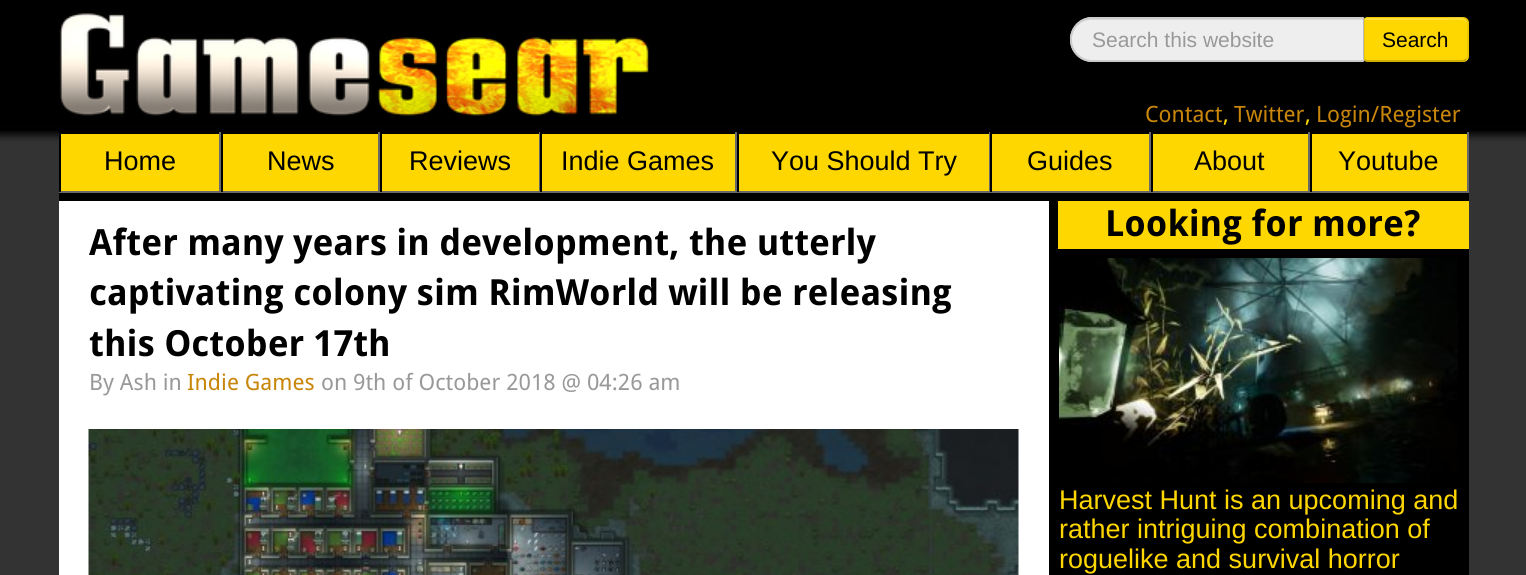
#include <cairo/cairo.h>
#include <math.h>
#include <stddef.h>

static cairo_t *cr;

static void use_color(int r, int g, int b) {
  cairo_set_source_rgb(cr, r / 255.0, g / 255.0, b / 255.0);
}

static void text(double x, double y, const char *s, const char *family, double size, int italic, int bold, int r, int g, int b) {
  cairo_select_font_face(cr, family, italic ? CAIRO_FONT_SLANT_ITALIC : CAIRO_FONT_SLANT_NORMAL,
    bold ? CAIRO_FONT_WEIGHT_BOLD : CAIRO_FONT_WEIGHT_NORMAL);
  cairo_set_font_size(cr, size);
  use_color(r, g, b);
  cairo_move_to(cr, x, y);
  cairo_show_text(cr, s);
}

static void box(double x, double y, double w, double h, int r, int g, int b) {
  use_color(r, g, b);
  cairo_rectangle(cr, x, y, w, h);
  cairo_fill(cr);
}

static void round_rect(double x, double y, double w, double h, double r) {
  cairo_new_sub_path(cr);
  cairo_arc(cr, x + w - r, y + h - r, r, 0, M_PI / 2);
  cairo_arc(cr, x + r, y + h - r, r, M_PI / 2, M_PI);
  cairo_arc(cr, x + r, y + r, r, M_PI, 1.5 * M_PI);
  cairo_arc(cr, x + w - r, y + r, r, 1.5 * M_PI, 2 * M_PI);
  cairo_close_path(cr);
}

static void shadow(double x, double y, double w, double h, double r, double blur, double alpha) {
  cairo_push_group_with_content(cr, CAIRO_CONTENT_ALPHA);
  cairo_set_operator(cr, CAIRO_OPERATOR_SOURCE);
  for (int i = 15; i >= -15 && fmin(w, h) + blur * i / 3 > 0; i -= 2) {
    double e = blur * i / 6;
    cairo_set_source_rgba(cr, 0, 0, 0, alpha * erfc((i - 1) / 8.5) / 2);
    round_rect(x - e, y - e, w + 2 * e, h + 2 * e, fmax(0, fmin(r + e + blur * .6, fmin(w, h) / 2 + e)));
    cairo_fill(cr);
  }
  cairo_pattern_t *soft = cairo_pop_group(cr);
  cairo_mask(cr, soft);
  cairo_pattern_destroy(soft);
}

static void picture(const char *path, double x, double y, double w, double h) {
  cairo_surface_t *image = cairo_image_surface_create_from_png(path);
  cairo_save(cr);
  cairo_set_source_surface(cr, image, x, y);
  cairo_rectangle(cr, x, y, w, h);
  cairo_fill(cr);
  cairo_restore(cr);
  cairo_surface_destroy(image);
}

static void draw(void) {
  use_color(51, 51, 51);
  cairo_paint(cr);
  use_color(0, 0, 0);
  shadow(-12, -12, 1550, 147, 0, 4, 1);
  box(0, 128, 1526, 3, 0, 0, 0);
  picture("img_01.png", 59, 12, 590, 105);
  use_color(238, 238, 238);
  cairo_new_path(cr);
  cairo_move_to(cr, 1092.5, 17);
  cairo_line_to(cr, 1362, 17);
  cairo_curve_to(cr, 1363.5, 17, 1365, 18.5, 1365, 20);
  cairo_line_to(cr, 1365, 59);
  cairo_curve_to(cr, 1365, 60.5, 1363.5, 62, 1362, 62);
  cairo_line_to(cr, 1092.5, 62);
  cairo_curve_to(cr, 1080, 62, 1070, 52, 1070, 39.5);
  cairo_curve_to(cr, 1070, 27, 1080, 17, 1092.5, 17);
  cairo_close_path(cr);
  cairo_fill(cr);
  use_color(220, 220, 220);
  cairo_new_path(cr);
  cairo_move_to(cr, 1092, 20);
  cairo_line_to(cr, 1362, 20);
  cairo_curve_to(cr, 1363, 20, 1364, 20, 1364, 21);
  cairo_curve_to(cr, 1364, 20, 1364, 18, 1362, 18);
  cairo_line_to(cr, 1092, 18);
  cairo_curve_to(cr, 1080, 18, 1071, 28, 1071, 40);
  cairo_curve_to(cr, 1071, 29, 1080, 20, 1092, 20);
  cairo_close_path(cr);
  cairo_fill(cr);
  cairo_new_path(cr);
  cairo_move_to(cr, 1092.5, 18);
  cairo_line_to(cr, 1362, 18);
  cairo_curve_to(cr, 1363, 18, 1364, 19, 1364, 20);
  cairo_line_to(cr, 1364, 59);
  cairo_curve_to(cr, 1364, 60, 1363, 61, 1362, 61);
  cairo_line_to(cr, 1092.5, 61);
  cairo_curve_to(cr, 1080.5, 61, 1071, 51.5, 1071, 39.5);
  cairo_curve_to(cr, 1071, 27.5, 1080.5, 18, 1092.5, 18);
  cairo_close_path(cr);
  use_color(204, 204, 204);
  cairo_stroke(cr);
  use_color(255, 215, 0);
  cairo_new_path(cr);
  cairo_move_to(cr, 1367, 17);
  cairo_line_to(cr, 1463, 17);
  cairo_curve_to(cr, 1466.5, 17, 1469, 19.5, 1469, 23);
  cairo_line_to(cr, 1469, 56);
  cairo_curve_to(cr, 1469, 59.5, 1466.5, 62, 1463, 62);
  cairo_line_to(cr, 1367, 62);
  cairo_curve_to(cr, 1365.5, 62, 1364, 60.5, 1364, 59);
  cairo_line_to(cr, 1364, 20);
  cairo_curve_to(cr, 1364, 18.5, 1365.5, 17, 1367, 17);
  cairo_close_path(cr);
  cairo_fill(cr);
  use_color(255, 223, 51);
  cairo_new_path(cr);
  cairo_move_to(cr, 1366, 20);
  cairo_line_to(cr, 1462, 20);
  cairo_curve_to(cr, 1465, 20, 1467, 22, 1467, 24);
  cairo_curve_to(cr, 1467, 14, 1451, 18, 1446, 18);
  cairo_line_to(cr, 1366, 18);
  cairo_curve_to(cr, 1365, 18, 1365, 20, 1365, 21);
  cairo_close_path(cr);
  cairo_fill(cr);
  cairo_new_path(cr);
  cairo_move_to(cr, 1466, 59);
  cairo_curve_to(cr, 1465, 60, 1464, 61, 1462.5, 61);
  cairo_line_to(cr, 1366.5, 61);
  cairo_line_to(cr, 1365, 60);
  cairo_set_source_rgba(cr, 0, 0, 0, 0.25);
  cairo_set_line_width(cr, 1.5);
  cairo_stroke(cr);
  cairo_new_path(cr);
  cairo_move_to(cr, 1365, 60);
  cairo_curve_to(cr, 1363, 58.5, 1364, 42, 1364, 39);
  cairo_line_to(cr, 1364, 26);
  cairo_curve_to(cr, 1364, 25, 1362.5, 17.5, 1366.5, 17);
  cairo_line_to(cr, 1446.5, 17);
  cairo_curve_to(cr, 1471.5, 17, 1468, 14.5, 1468, 39);
  cairo_line_to(cr, 1468, 50);
  cairo_curve_to(cr, 1468, 53, 1468.5, 57, 1466, 59);
  cairo_set_source_rgba(cr, 0, 0, 0, 0.1);
  cairo_stroke(cr);
  box(59, 131, 1410, 1, 0, 0, 0);
  box(59, 193, 1410, 2, 0, 0, 0);
  box(61, 134, 158, 57, 255, 215, 0);
  box(59, 132, 1410, 2, 0, 0, 0);
  box(219, 132, 2, 60, 105, 105, 105);
  box(59, 191, 162, 2, 105, 105, 105);
  box(59, 132, 2, 60, 0, 0, 0);
  box(223, 134, 155, 57, 255, 215, 0);
  box(378, 132, 2, 60, 105, 105, 105);
  box(221, 191, 159, 2, 105, 105, 105);
  box(221, 132, 2, 60, 0, 0, 0);
  box(382, 134, 157, 57, 255, 215, 0);
  box(539, 132, 1, 60, 105, 105, 105);
  box(380, 191, 160, 2, 105, 105, 105);
  box(380, 132, 2, 60, 0, 0, 0);
  box(542, 134, 193, 57, 255, 215, 0);
  box(735, 132, 2, 60, 105, 105, 105);
  box(540, 191, 197, 2, 105, 105, 105);
  box(540, 132, 2, 60, 0, 0, 0);
  box(739, 134, 250, 57, 255, 215, 0);
  box(989, 132, 1, 60, 105, 105, 105);
  box(737, 191, 253, 2, 105, 105, 105);
  box(737, 132, 2, 60, 0, 0, 0);
  box(992, 134, 157, 57, 255, 215, 0);
  box(1149, 132, 2, 60, 105, 105, 105);
  box(990, 191, 161, 2, 105, 105, 105);
  box(990, 132, 2, 60, 0, 0, 0);
  box(1153, 134, 155, 57, 255, 215, 0);
  box(1308, 132, 2, 60, 105, 105, 105);
  box(1151, 191, 159, 2, 105, 105, 105);
  box(1151, 132, 2, 60, 0, 0, 0);
  box(1312, 134, 155, 57, 255, 215, 0);
  box(1467, 132, 2, 60, 105, 105, 105);
  box(1310, 191, 159, 2, 105, 105, 105);
  box(1310, 132, 2, 60, 0, 0, 0);
  box(59, 201, 990, 374, 255, 255, 255);
  box(59, 195, 994, 6, 0, 0, 0);
  box(1049, 195, 420, 380, 0, 0, 0);
  picture("img_02.png", 88, 429, 931, 146);
  box(1058, 201, 411, 48, 255, 215, 0);
  picture("img_03.png", 1059, 258, 399, 225);
  text(1092, 47, "Search this website", "Liberation Sans", 21, 0, 0, 153, 153, 153);
  text(1382, 47, "Search", "Liberation Sans", 21, 0, 0, 0, 0, 0);
  text(1145, 122, "Contact", "Droid Sans", 22.5, 0, 0, 200, 134, 11);
  text(1223, 122, ",", "Droid Sans", 22.5, 0, 0, 255, 215, 0);
  text(1234, 122, "Twitter", "Droid Sans", 22.5, 0, 0, 200, 134, 11);
  text(1305, 122, ",", "Droid Sans", 22.5, 0, 0, 255, 215, 0);
  text(1316, 122, "Login/Register", "Droid Sans", 22.5, 0, 0, 200, 134, 11);
  text(104, 170, "Home", "Liberation Sans", 27, 0, 0, 0, 0, 0);
  text(267, 170, "News", "Liberation Sans", 27, 0, 0, 0, 0, 0);
  text(409, 170, "Reviews", "Liberation Sans", 27, 0, 0, 0, 0, 0);
  text(561, 170, "Indie Games", "Liberation Sans", 27, 0, 0, 0, 0, 0);
  text(771, 170, "You Should Try", "Liberation Sans", 27, 0, 0, 0, 0, 0);
  text(1027, 170, "Guides", "Liberation Sans", 27, 0, 0, 0, 0, 0);
  text(1194, 170, "About", "Liberation Sans", 27, 0, 0, 0, 0, 0);
  text(1338, 170, "Youtube", "Liberation Sans", 27, 0, 0, 0, 0, 0);
  text(89, 255, "After many years in development, the utterly", "Droid Sans", 36, 0, 1, 0, 0, 0);
  text(89, 305, "captivating colony sim RimWorld will be releasing", "Droid Sans", 36, 0, 1, 0, 0, 0);
  text(89, 356, "this October 17th", "Droid Sans", 36, 0, 1, 0, 0, 0);
  text(89, 390, "By Ash in", "Droid Sans", 22.5, 0, 0, 153, 153, 153);
  text(187, 390, "Indie Games", "Droid Sans", 22.5, 0, 0, 200, 134, 11);
  text(321, 390, "on 9th of October 2018 @ 04:26 am", "Droid Sans", 22.5, 0, 0, 153, 153, 153);
  text(1105, 236, "Looking for more?", "Droid Sans", 36, 0, 1, 0, 0, 0);
  text(1059, 509, "Harvest Hunt is an upcoming and", "Liberation Sans", 27, 0, 0, 255, 215, 0);
  text(1059, 538, "rather intriguing combination of", "Liberation Sans", 27, 0, 0, 255, 215, 0);
  text(1059, 568, "roguelike and survival horror", "Liberation Sans", 27, 0, 0, 255, 215, 0);
}

int main(void) {
  cairo_surface_t *surface = cairo_image_surface_create(CAIRO_FORMAT_RGB24, 1526, 575);
  cr = cairo_create(surface);
  cairo_font_options_t *options = cairo_font_options_create();
  cairo_font_options_set_hint_metrics(options, CAIRO_HINT_METRICS_OFF);
  cairo_font_options_set_hint_style(options, CAIRO_HINT_STYLE_NONE);
  cairo_set_font_options(cr, options);
  cairo_set_miter_limit(cr, 4);
  draw();
  cairo_surface_write_to_png(surface, "out.png");
  cairo_font_options_destroy(options);
  cairo_destroy(cr);
  cairo_surface_destroy(surface);
  return 0;
}
